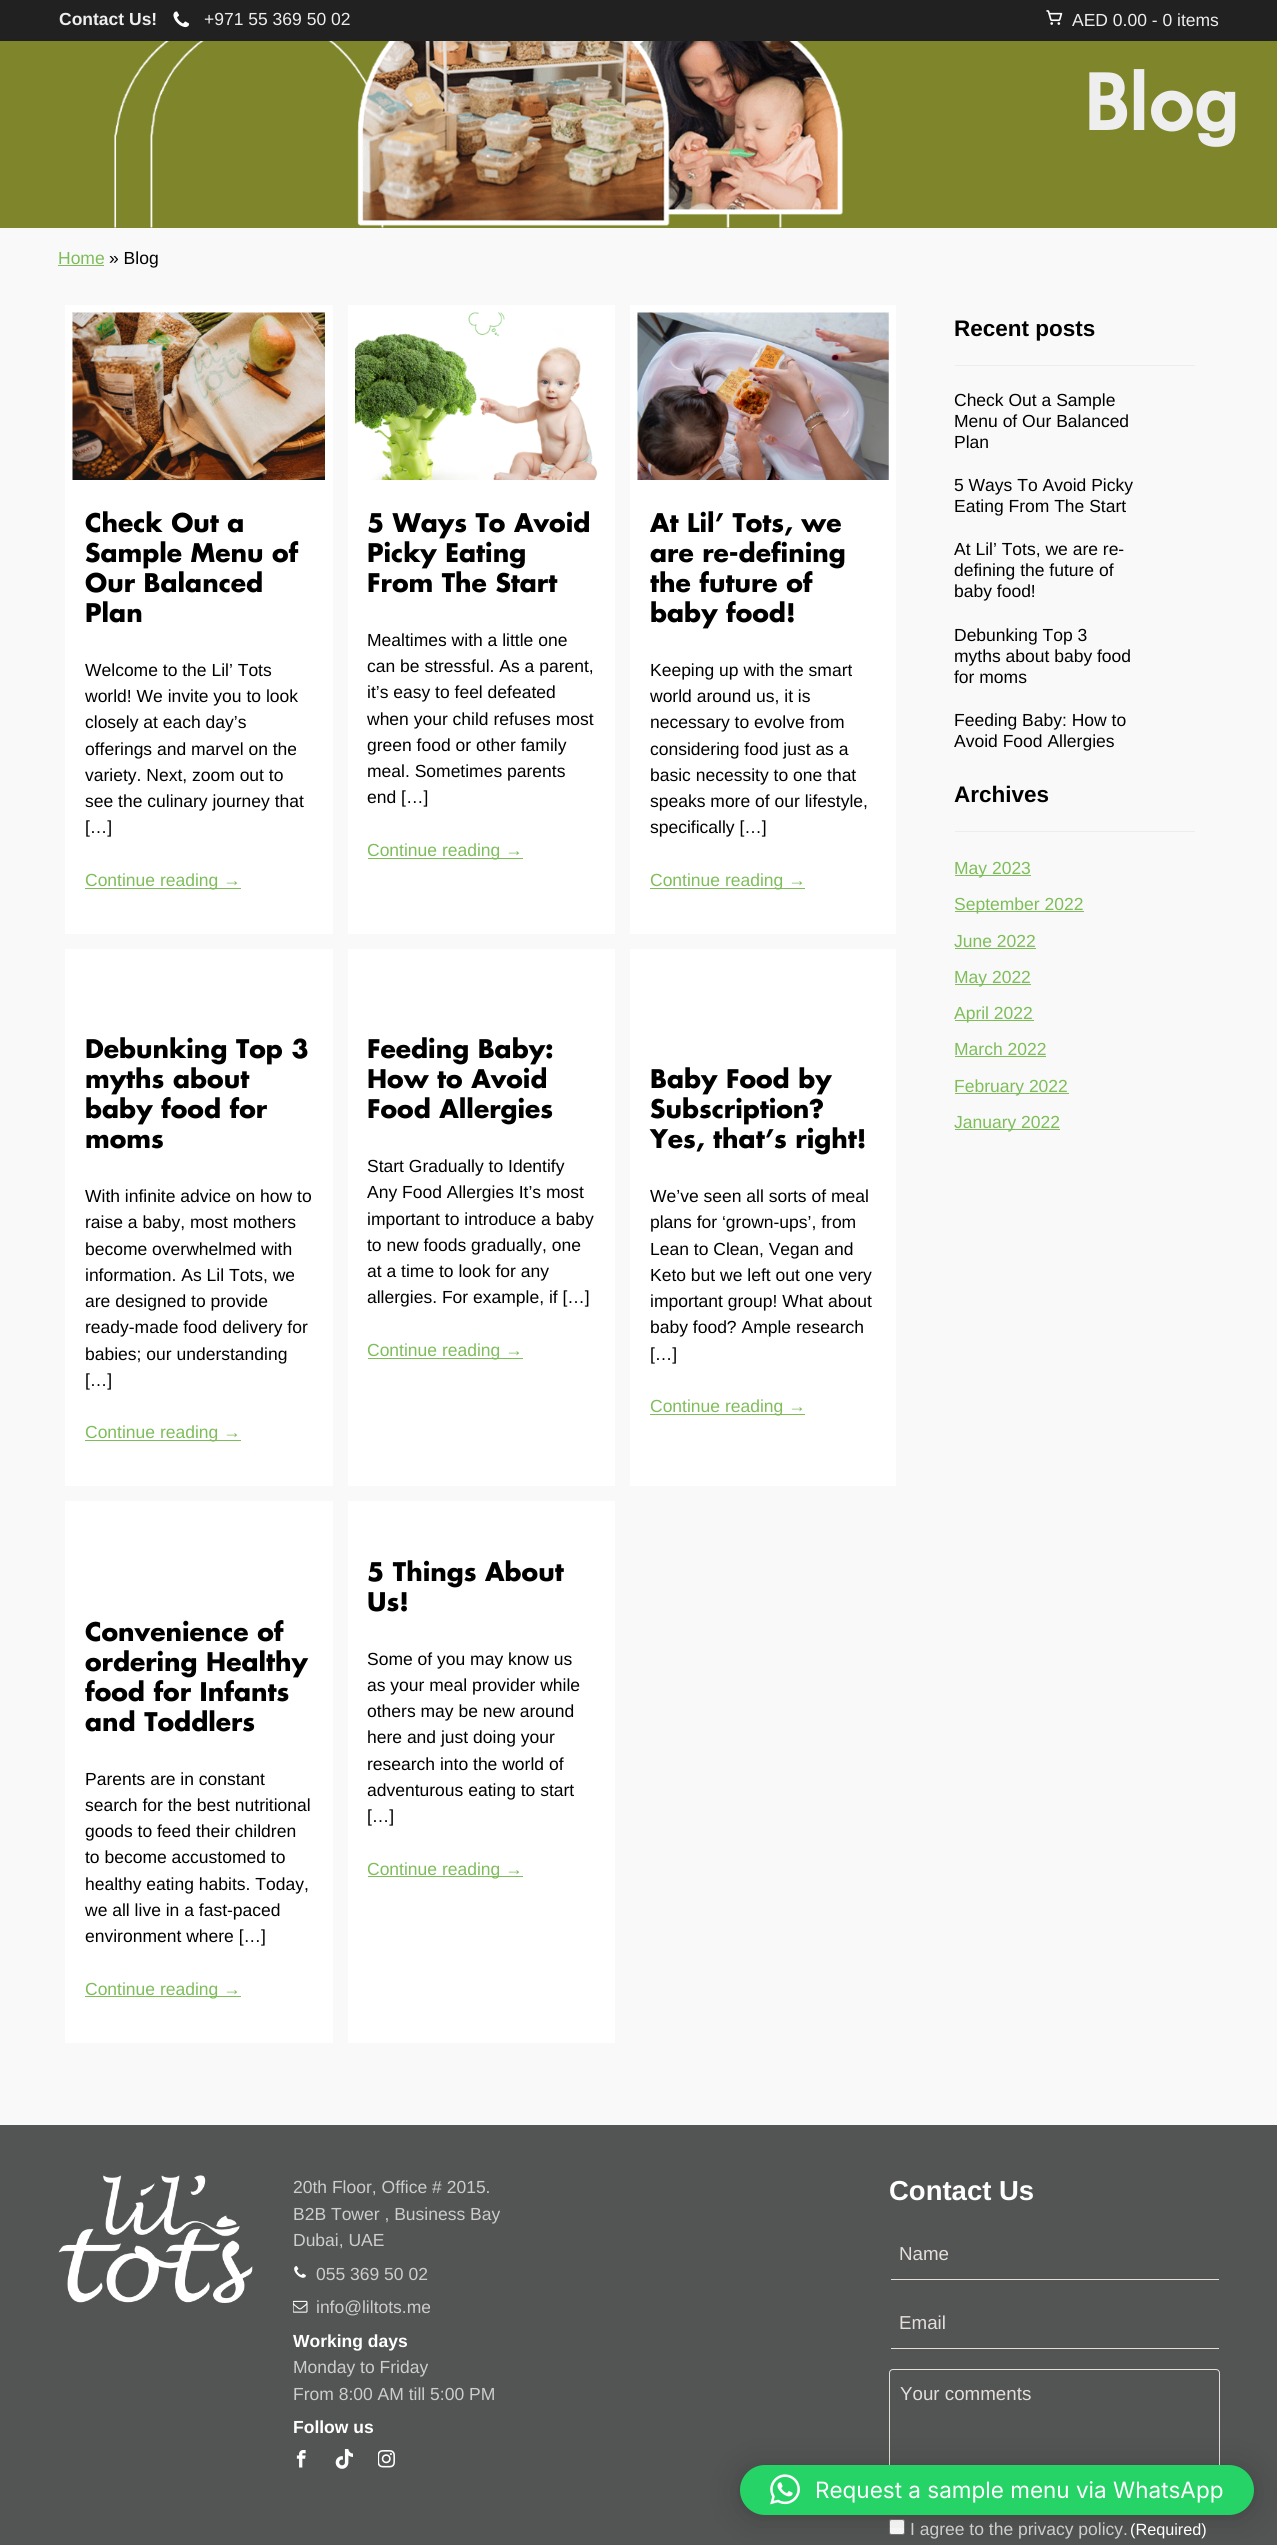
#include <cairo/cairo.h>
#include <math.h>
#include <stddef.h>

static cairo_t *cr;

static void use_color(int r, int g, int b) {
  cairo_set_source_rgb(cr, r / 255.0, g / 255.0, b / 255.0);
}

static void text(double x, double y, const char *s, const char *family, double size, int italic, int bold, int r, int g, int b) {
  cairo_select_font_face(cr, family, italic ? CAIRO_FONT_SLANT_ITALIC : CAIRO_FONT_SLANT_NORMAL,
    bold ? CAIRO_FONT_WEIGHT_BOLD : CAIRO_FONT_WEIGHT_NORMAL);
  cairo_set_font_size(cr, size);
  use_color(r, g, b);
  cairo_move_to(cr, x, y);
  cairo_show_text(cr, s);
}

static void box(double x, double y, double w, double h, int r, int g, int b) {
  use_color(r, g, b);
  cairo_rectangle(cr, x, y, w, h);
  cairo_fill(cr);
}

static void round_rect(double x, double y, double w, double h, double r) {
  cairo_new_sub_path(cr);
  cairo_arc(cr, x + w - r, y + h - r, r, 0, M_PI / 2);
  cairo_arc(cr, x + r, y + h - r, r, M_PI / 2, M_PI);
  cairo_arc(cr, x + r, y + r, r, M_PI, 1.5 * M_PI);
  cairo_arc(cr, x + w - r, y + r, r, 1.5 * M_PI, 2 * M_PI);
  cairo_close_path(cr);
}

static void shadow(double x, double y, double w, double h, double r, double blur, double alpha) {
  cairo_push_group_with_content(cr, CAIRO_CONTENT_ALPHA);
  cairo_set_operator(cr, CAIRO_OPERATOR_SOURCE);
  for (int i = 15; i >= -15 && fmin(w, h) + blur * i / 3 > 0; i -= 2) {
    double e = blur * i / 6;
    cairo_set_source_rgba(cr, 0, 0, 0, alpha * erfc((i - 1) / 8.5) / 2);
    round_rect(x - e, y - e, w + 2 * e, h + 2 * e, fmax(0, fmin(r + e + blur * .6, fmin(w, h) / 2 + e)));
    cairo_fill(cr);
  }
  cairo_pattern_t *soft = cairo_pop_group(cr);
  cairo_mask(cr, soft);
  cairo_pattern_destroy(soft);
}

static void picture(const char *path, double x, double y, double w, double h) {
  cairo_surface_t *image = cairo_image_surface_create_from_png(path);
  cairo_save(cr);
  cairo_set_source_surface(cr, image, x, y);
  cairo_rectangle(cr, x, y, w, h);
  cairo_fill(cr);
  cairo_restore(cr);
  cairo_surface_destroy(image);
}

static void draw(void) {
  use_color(249, 249, 249);
  cairo_paint(cr);
  box(0, 0, 1277, 41, 33, 33, 33);
  picture("img_01.png", 173, 11, 17, 17);
  picture("img_02.png", 1046, 10, 17, 15);
  box(0, 41, 1277, 187, 126, 133, 42);
  picture("img_03.png", 114, 41, 729, 187);
  box(58, 265, 46, 1, 126, 189, 90);
  box(65, 305, 268, 629, 255, 255, 255);
  picture("img_04.png", 72, 312, 253, 168);
  box(85, 888, 156, 1, 126, 189, 90);
  box(348, 305, 267, 629, 255, 255, 255);
  picture("img_05.png", 355, 312, 243, 168);
  box(368, 858, 155, 1, 126, 189, 90);
  box(630, 305, 266, 629, 255, 255, 255);
  picture("img_06.png", 637, 312, 252, 168);
  box(650, 888, 155, 1, 126, 189, 90);
  box(65, 949, 268, 537, 255, 255, 255);
  box(85, 1440, 156, 1, 126, 189, 90);
  box(348, 949, 267, 537, 255, 255, 255);
  box(368, 1358, 155, 1, 126, 189, 90);
  box(630, 949, 266, 537, 255, 255, 255);
  box(650, 1414, 155, 1, 126, 189, 90);
  box(65, 1501, 268, 542, 255, 255, 255);
  box(85, 1996, 156, 1, 126, 189, 90);
  box(348, 1501, 267, 542, 255, 255, 255);
  box(368, 1876, 155, 1, 126, 189, 90);
  box(955, 365, 240, 1, 237, 237, 237);
  box(955, 831, 240, 1, 237, 237, 237);
  box(955, 875, 76, 1, 126, 189, 90);
  box(955, 911, 129, 1, 126, 189, 90);
  box(955, 948, 81, 1, 126, 189, 90);
  box(955, 984, 76, 1, 126, 189, 90);
  box(955, 1020, 79, 1, 126, 189, 90);
  box(955, 1056, 91, 1, 126, 189, 90);
  box(955, 1093, 114, 1, 126, 189, 90);
  box(955, 1129, 105, 1, 126, 189, 90);
  box(0, 2125, 1277, 420, 83, 84, 84);
  picture("img_07.png", 58, 2175, 195, 128);
  picture("img_08.png", 294, 2266, 12, 12);
  picture("img_09.png", 293, 2300, 15, 13);
  picture("img_10.png", 296, 2450, 10, 18);
  picture("img_11.png", 335, 2449, 18, 20);
  picture("img_12.png", 378, 2450, 17, 18);
  box(891, 2279, 328, 1, 227, 223, 219);
  box(891, 2348, 328, 1, 227, 223, 219);
  round_rect(889.5, 2369.5, 330, 119, 3.5);
  cairo_set_line_width(cr, 1);
  cairo_stroke(cr);
  use_color(255, 255, 255);
  round_rect(889.5, 2519.5, 15, 15, 2);
  cairo_fill_preserve(cr);
  use_color(118, 118, 118);
  cairo_stroke(cr);
  use_color(0, 0, 0);
  shadow(740, 2468, 514, 50, 25, 20, 0.16);
  shadow(740, 2466, 514, 50, 25, 4, 0.06);
  use_color(37, 211, 102);
  round_rect(740, 2465, 514, 50, 25);
  cairo_fill(cr);
  picture("img_13.png", 770, 2474, 30, 31);
  text(59, 25, "Contact Us!", "Liberation Sans", 17.5, 0, 1, 238, 238, 238);
  text(204, 25, "+971 55 369 50 02", "Liberation Sans", 17.5, 0, 0, 238, 238, 238);
  text(1072, 26, "AED 0.00 - 0 items", "Liberation Sans", 17.5, 0, 0, 238, 238, 238);
  text(1083, 130, "Blog", "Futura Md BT", 77.5, 0, 1, 238, 238, 238);
  text(58, 264, "Home", "Liberation Sans", 17.5, 0, 0, 126, 189, 90);
  text(109, 264, "» Blog", "Liberation Sans", 17.5, 0, 0, 0, 0, 0);
  text(85, 532, "Check Out a", "Futura", 25, 0, 1, 0, 0, 0);
  text(85, 562, "Sample Menu of", "Futura", 25, 0, 1, 0, 0, 0);
  text(85, 592, "Our Balanced", "Futura", 25, 0, 1, 0, 0, 0);
  text(85, 622, "Plan", "Futura", 25, 0, 1, 0, 0, 0);
  text(85, 676, "Welcome to the Lil’ Tots", "Liberation Sans", 17.5, 0, 0, 0, 0, 0);
  text(85, 702, "world! We invite you to look", "Liberation Sans", 17.5, 0, 0, 0, 0, 0);
  text(85, 728, "closely at each day’s", "Liberation Sans", 17.5, 0, 0, 0, 0, 0);
  text(85, 755, "offerings and marvel on the", "Liberation Sans", 17.5, 0, 0, 0, 0, 0);
  text(85, 781, "variety. Next, zoom out to", "Liberation Sans", 17.5, 0, 0, 0, 0, 0);
  text(85, 807, "see the culinary journey that", "Liberation Sans", 17.5, 0, 0, 0, 0, 0);
  text(85, 833, "[…]", "Liberation Sans", 17.5, 0, 0, 0, 0, 0);
  text(85, 886, "Continue reading →", "Liberation Sans", 17.5, 0, 0, 126, 189, 90);
  text(367, 532, "5 Ways To Avoid", "Futura", 25, 0, 1, 0, 0, 0);
  text(367, 562, "Picky Eating", "Futura", 25, 0, 1, 0, 0, 0);
  text(367, 592, "From The Start", "Futura", 25, 0, 1, 0, 0, 0);
  text(367, 646, "Mealtimes with a little one", "Liberation Sans", 17.5, 0, 0, 0, 0, 0);
  text(367, 672, "can be stressful. As a parent,", "Liberation Sans", 17.5, 0, 0, 0, 0, 0);
  text(367, 698, "it’s easy to feel defeated", "Liberation Sans", 17.5, 0, 0, 0, 0, 0);
  text(367, 725, "when your child refuses most", "Liberation Sans", 17.5, 0, 0, 0, 0, 0);
  text(367, 751, "green food or other family", "Liberation Sans", 17.5, 0, 0, 0, 0, 0);
  text(367, 777, "meal. Sometimes parents", "Liberation Sans", 17.5, 0, 0, 0, 0, 0);
  text(367, 803, "end […]", "Liberation Sans", 17.5, 0, 0, 0, 0, 0);
  text(367, 856, "Continue reading →", "Liberation Sans", 17.5, 0, 0, 126, 189, 90);
  text(650, 532, "At Lil’ Tots, we", "Futura", 25, 0, 1, 0, 0, 0);
  text(650, 562, "are re-defining", "Futura", 25, 0, 1, 0, 0, 0);
  text(650, 592, "the future of", "Futura", 25, 0, 1, 0, 0, 0);
  text(650, 622, "baby food!", "Futura", 25, 0, 1, 0, 0, 0);
  text(650, 676, "Keeping up with the smart", "Liberation Sans", 17.5, 0, 0, 0, 0, 0);
  text(650, 702, "world around us, it is", "Liberation Sans", 17.5, 0, 0, 0, 0, 0);
  text(650, 728, "necessary to evolve from", "Liberation Sans", 17.5, 0, 0, 0, 0, 0);
  text(650, 755, "considering food just as a", "Liberation Sans", 17.5, 0, 0, 0, 0, 0);
  text(650, 781, "basic necessity to one that", "Liberation Sans", 17.5, 0, 0, 0, 0, 0);
  text(650, 807, "speaks more of our lifestyle,", "Liberation Sans", 17.5, 0, 0, 0, 0, 0);
  text(650, 833, "specifically […]", "Liberation Sans", 17.5, 0, 0, 0, 0, 0);
  text(650, 886, "Continue reading →", "Liberation Sans", 17.5, 0, 0, 126, 189, 90);
  text(85, 1058, "Debunking Top 3", "Futura", 25, 0, 1, 0, 0, 0);
  text(85, 1088, "myths about", "Futura", 25, 0, 1, 0, 0, 0);
  text(85, 1118, "baby food for", "Futura", 25, 0, 1, 0, 0, 0);
  text(85, 1148, "moms", "Futura", 25, 0, 1, 0, 0, 0);
  text(85, 1202, "With infinite advice on how to", "Liberation Sans", 17.5, 0, 0, 0, 0, 0);
  text(85, 1228, "raise a baby, most mothers", "Liberation Sans", 17.5, 0, 0, 0, 0, 0);
  text(85, 1255, "become overwhelmed with", "Liberation Sans", 17.5, 0, 0, 0, 0, 0);
  text(85, 1281, "information. As Lil Tots, we", "Liberation Sans", 17.5, 0, 0, 0, 0, 0);
  text(85, 1307, "are designed to provide", "Liberation Sans", 17.5, 0, 0, 0, 0, 0);
  text(85, 1333, "ready-made food delivery for", "Liberation Sans", 17.5, 0, 0, 0, 0, 0);
  text(85, 1360, "babies; our understanding", "Liberation Sans", 17.5, 0, 0, 0, 0, 0);
  text(85, 1386, "[…]", "Liberation Sans", 17.5, 0, 0, 0, 0, 0);
  text(85, 1438, "Continue reading →", "Liberation Sans", 17.5, 0, 0, 126, 189, 90);
  text(367, 1058, "Feeding Baby:", "Futura", 25, 0, 1, 0, 0, 0);
  text(367, 1088, "How to Avoid", "Futura", 25, 0, 1, 0, 0, 0);
  text(367, 1118, "Food Allergies", "Futura", 25, 0, 1, 0, 0, 0);
  text(367, 1172, "Start Gradually to Identify", "Liberation Sans", 17.5, 0, 0, 0, 0, 0);
  text(367, 1198, "Any Food Allergies It’s most", "Liberation Sans", 17.5, 0, 0, 0, 0, 0);
  text(367, 1225, "important to introduce a baby", "Liberation Sans", 17.5, 0, 0, 0, 0, 0);
  text(367, 1251, "to new foods gradually, one", "Liberation Sans", 17.5, 0, 0, 0, 0, 0);
  text(367, 1277, "at a time to look for any", "Liberation Sans", 17.5, 0, 0, 0, 0, 0);
  text(367, 1303, "allergies. For example, if […]", "Liberation Sans", 17.5, 0, 0, 0, 0, 0);
  text(367, 1356, "Continue reading →", "Liberation Sans", 17.5, 0, 0, 126, 189, 90);
  text(650, 1088, "Baby Food by", "Futura", 25, 0, 1, 0, 0, 0);
  text(650, 1118, "Subscription?", "Futura", 25, 0, 1, 0, 0, 0);
  text(650, 1148, "Yes, that’s right!", "Futura", 25, 0, 1, 0, 0, 0);
  text(650, 1202, "We’ve seen all sorts of meal", "Liberation Sans", 17.5, 0, 0, 0, 0, 0);
  text(650, 1228, "plans for ‘grown-ups’, from", "Liberation Sans", 17.5, 0, 0, 0, 0, 0);
  text(650, 1255, "Lean to Clean, Vegan and", "Liberation Sans", 17.5, 0, 0, 0, 0, 0);
  text(650, 1281, "Keto but we left out one very", "Liberation Sans", 17.5, 0, 0, 0, 0, 0);
  text(650, 1307, "important group! What about", "Liberation Sans", 17.5, 0, 0, 0, 0, 0);
  text(650, 1333, "baby food? Ample research", "Liberation Sans", 17.5, 0, 0, 0, 0, 0);
  text(650, 1360, "[…]", "Liberation Sans", 17.5, 0, 0, 0, 0, 0);
  text(650, 1412, "Continue reading →", "Liberation Sans", 17.5, 0, 0, 126, 189, 90);
  text(85, 1641, "Convenience of", "Futura", 25, 0, 1, 0, 0, 0);
  text(85, 1671, "ordering Healthy", "Futura", 25, 0, 1, 0, 0, 0);
  text(85, 1701, "food for Infants", "Futura", 25, 0, 1, 0, 0, 0);
  text(85, 1731, "and Toddlers", "Futura", 25, 0, 1, 0, 0, 0);
  text(85, 1785, "Parents are in constant", "Liberation Sans", 17.5, 0, 0, 0, 0, 0);
  text(85, 1811, "search for the best nutritional", "Liberation Sans", 17.5, 0, 0, 0, 0, 0);
  text(85, 1837, "goods to feed their children", "Liberation Sans", 17.5, 0, 0, 0, 0, 0);
  text(85, 1863, "to become accustomed to", "Liberation Sans", 17.5, 0, 0, 0, 0, 0);
  text(85, 1890, "healthy eating habits. Today,", "Liberation Sans", 17.5, 0, 0, 0, 0, 0);
  text(85, 1916, "we all live in a fast-paced", "Liberation Sans", 17.5, 0, 0, 0, 0, 0);
  text(85, 1942, "environment where […]", "Liberation Sans", 17.5, 0, 0, 0, 0, 0);
  text(85, 1995, "Continue reading →", "Liberation Sans", 17.5, 0, 0, 126, 189, 90);
  text(367, 1581, "5 Things About", "Futura", 25, 0, 1, 0, 0, 0);
  text(367, 1611, "Us!", "Futura", 25, 0, 1, 0, 0, 0);
  text(367, 1665, "Some of you may know us", "Liberation Sans", 17.5, 0, 0, 0, 0, 0);
  text(367, 1691, "as your meal provider while", "Liberation Sans", 17.5, 0, 0, 0, 0, 0);
  text(367, 1717, "others may be new around", "Liberation Sans", 17.5, 0, 0, 0, 0, 0);
  text(367, 1743, "here and just doing your", "Liberation Sans", 17.5, 0, 0, 0, 0, 0);
  text(367, 1770, "research into the world of", "Liberation Sans", 17.5, 0, 0, 0, 0, 0);
  text(367, 1796, "adventurous eating to start", "Liberation Sans", 17.5, 0, 0, 0, 0, 0);
  text(367, 1822, "[…]", "Liberation Sans", 17.5, 0, 0, 0, 0, 0);
  text(367, 1875, "Continue reading →", "Liberation Sans", 17.5, 0, 0, 126, 189, 90);
  text(954, 336, "Recent posts", "Liberation Sans", 22.5, 0, 1, 0, 0, 0);
  text(954, 406, "Check Out a Sample", "Liberation Sans", 17.5, 0, 0, 0, 0, 0);
  text(954, 427, "Menu of Our Balanced", "Liberation Sans", 17.5, 0, 0, 0, 0, 0);
  text(954, 448, "Plan", "Liberation Sans", 17.5, 0, 0, 0, 0, 0);
  text(954, 491, "5 Ways To Avoid Picky", "Liberation Sans", 17.5, 0, 0, 0, 0, 0);
  text(954, 512, "Eating From The Start", "Liberation Sans", 17.5, 0, 0, 0, 0, 0);
  text(954, 555, "At Lil’ Tots, we are re-", "Liberation Sans", 17.5, 0, 0, 0, 0, 0);
  text(954, 576, "defining the future of", "Liberation Sans", 17.5, 0, 0, 0, 0, 0);
  text(954, 597, "baby food!", "Liberation Sans", 17.5, 0, 0, 0, 0, 0);
  text(954, 641, "Debunking Top 3", "Liberation Sans", 17.5, 0, 0, 0, 0, 0);
  text(954, 662, "myths about baby food", "Liberation Sans", 17.5, 0, 0, 0, 0, 0);
  text(954, 683, "for moms", "Liberation Sans", 17.5, 0, 0, 0, 0, 0);
  text(954, 726, "Feeding Baby: How to", "Liberation Sans", 17.5, 0, 0, 0, 0, 0);
  text(954, 747, "Avoid Food Allergies", "Liberation Sans", 17.5, 0, 0, 0, 0, 0);
  text(954, 802, "Archives", "Liberation Sans", 22.5, 0, 1, 0, 0, 0);
  text(954, 874, "May 2023", "Liberation Sans", 17.5, 0, 0, 126, 189, 90);
  text(954, 910, "September 2022", "Liberation Sans", 17.5, 0, 0, 126, 189, 90);
  text(954, 947, "June 2022", "Liberation Sans", 17.5, 0, 0, 126, 189, 90);
  text(954, 983, "May 2022", "Liberation Sans", 17.5, 0, 0, 126, 189, 90);
  text(954, 1019, "April 2022", "Liberation Sans", 17.5, 0, 0, 126, 189, 90);
  text(954, 1055, "March 2022", "Liberation Sans", 17.5, 0, 0, 126, 189, 90);
  text(954, 1092, "February 2022", "Liberation Sans", 17.5, 0, 0, 126, 189, 90);
  text(954, 1128, "January 2022", "Liberation Sans", 17.5, 0, 0, 126, 189, 90);
  text(293, 2193, "20th Floor, Office # 2015.", "Liberation Sans", 17.5, 0, 0, 205, 205, 205);
  text(293, 2220, "B2B Tower , Business Bay", "Liberation Sans", 17.5, 0, 0, 205, 205, 205);
  text(293, 2246, "Dubai, UAE", "Liberation Sans", 17.5, 0, 0, 205, 205, 205);
  text(316, 2280, "055 369 50 02", "Liberation Sans", 17.5, 0, 0, 205, 205, 205);
  text(316, 2313, "info@liltots.me", "Liberation Sans", 17.5, 0, 0, 205, 205, 205);
  text(293, 2347, "Working days", "Liberation Sans", 17.5, 0, 1, 255, 255, 255);
  text(293, 2373, "Monday to Friday", "Liberation Sans", 17.5, 0, 0, 205, 205, 205);
  text(293, 2400, "From 8:00 AM till 5:00 PM", "Liberation Sans", 17.5, 0, 0, 205, 205, 205);
  text(293, 2433, "Follow us", "Liberation Sans", 17.5, 0, 1, 255, 255, 255);
  text(889, 2200, "Contact Us", "Liberation Sans", 27.5, 0, 1, 255, 255, 255);
  text(899, 2260, "Name", "Liberation Sans", 18.75, 0, 0, 227, 223, 219);
  text(899, 2329, "Email", "Liberation Sans", 18.75, 0, 0, 227, 223, 219);
  text(900, 2400, "Your comments", "Liberation Sans", 18.75, 0, 0, 227, 223, 219);
  text(910, 2535, "I agree to the privacy policy.", "Liberation Sans", 17.5, 0, 0, 205, 205, 205);
  text(1130, 2535, "(Required)", "Liberation Sans", 16.25, 0, 0, 255, 255, 255);
  text(815, 2498, "Request a sample menu via WhatsApp", "Inter", 22.5, 0, 0, 255, 255, 255);
}

int main(void) {
  cairo_surface_t *surface = cairo_image_surface_create(CAIRO_FORMAT_RGB24, 1277, 2545);
  cr = cairo_create(surface);
  cairo_font_options_t *options = cairo_font_options_create();
  cairo_font_options_set_hint_metrics(options, CAIRO_HINT_METRICS_OFF);
  cairo_font_options_set_hint_style(options, CAIRO_HINT_STYLE_NONE);
  cairo_set_font_options(cr, options);
  cairo_set_miter_limit(cr, 4);
  draw();
  cairo_surface_write_to_png(surface, "out.png");
  cairo_font_options_destroy(options);
  cairo_destroy(cr);
  cairo_surface_destroy(surface);
  return 0;
}
